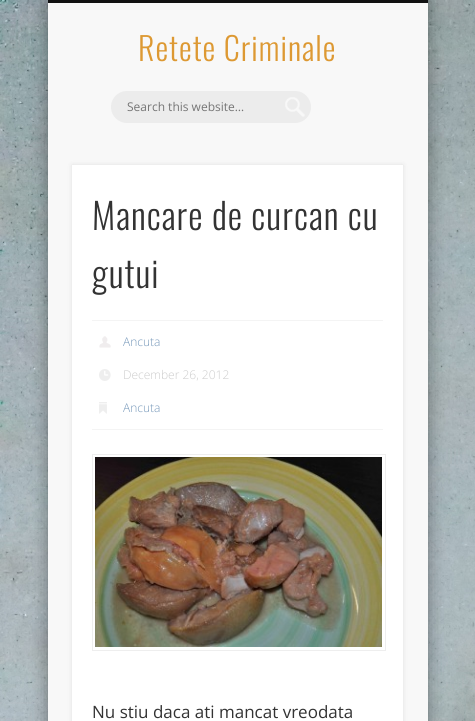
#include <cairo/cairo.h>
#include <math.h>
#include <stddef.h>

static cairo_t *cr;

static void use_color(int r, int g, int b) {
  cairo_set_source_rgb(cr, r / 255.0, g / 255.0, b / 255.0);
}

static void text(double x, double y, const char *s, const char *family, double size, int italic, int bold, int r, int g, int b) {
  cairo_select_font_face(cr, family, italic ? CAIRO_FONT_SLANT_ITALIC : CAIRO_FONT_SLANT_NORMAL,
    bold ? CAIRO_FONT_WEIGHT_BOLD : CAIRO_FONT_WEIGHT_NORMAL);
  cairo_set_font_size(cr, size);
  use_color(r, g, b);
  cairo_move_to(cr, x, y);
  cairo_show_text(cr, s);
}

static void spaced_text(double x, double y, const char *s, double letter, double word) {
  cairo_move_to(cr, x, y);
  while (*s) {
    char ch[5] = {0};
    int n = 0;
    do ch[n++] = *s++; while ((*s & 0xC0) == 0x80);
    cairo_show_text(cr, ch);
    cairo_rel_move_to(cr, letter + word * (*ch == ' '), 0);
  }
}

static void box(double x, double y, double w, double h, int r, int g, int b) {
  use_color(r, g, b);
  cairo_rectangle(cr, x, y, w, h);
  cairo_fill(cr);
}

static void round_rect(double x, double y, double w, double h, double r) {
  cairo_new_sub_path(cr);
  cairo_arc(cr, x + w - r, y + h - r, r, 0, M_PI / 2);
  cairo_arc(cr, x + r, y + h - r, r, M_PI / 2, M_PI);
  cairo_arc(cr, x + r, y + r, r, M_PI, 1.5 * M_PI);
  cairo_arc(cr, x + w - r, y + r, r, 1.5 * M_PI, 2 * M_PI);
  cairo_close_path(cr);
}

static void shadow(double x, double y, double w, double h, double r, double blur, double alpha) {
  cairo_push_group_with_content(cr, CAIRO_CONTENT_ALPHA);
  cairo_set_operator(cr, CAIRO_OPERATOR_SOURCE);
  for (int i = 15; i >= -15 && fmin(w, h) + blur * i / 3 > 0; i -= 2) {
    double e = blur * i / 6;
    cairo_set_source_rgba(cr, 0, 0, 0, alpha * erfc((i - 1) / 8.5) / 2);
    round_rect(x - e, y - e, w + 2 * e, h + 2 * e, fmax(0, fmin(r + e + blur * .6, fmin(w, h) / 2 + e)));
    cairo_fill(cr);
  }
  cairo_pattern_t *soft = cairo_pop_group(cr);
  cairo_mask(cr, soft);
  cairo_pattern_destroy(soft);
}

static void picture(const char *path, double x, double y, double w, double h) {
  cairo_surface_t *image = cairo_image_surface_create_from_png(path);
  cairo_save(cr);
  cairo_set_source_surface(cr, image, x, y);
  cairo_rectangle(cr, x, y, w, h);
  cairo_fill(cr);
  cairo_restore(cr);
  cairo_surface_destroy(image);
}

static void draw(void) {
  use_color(255, 255, 255);
  cairo_paint(cr);
  picture("img_01.png", 0, 0, 475, 721);
  use_color(0, 0, 0);
  shadow(48, 0, 380, 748, 0, 9, 0.4);
  box(48, 3, 380, 718, 248, 248, 248);
  box(48, 0, 380, 3, 17, 17, 17);
  use_color(236, 236, 236);
  round_rect(111, 91, 200, 32, 16);
  cairo_fill(cr);
  picture("img_02.png", 285, 97, 20, 20);
  use_color(0, 0, 0);
  shadow(72, 165, 331, 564, 0, 2.5, 0.1);
  box(72, 165, 331, 556, 255, 255, 255);
  box(92, 320, 291, 1, 244, 244, 244);
  box(92, 429, 291, 1, 244, 244, 244);
  picture("img_03.png", 99, 336, 12, 12);
  picture("img_04.png", 99, 369, 12, 12);
  picture("img_05.png", 99, 402, 8, 12);
  cairo_rectangle(cr, 92.5, 454.5, 293, 196);
  use_color(238, 238, 238);
  cairo_set_line_width(cr, 1);
  cairo_stroke(cr);
  picture("img_06.png", 95, 457, 287, 190);
  cairo_select_font_face(cr, "Oswald Light", CAIRO_FONT_SLANT_NORMAL, CAIRO_FONT_WEIGHT_NORMAL);
  cairo_set_font_size(cr, 32);
  use_color(221, 153, 51);
  spaced_text(138, 61, "Retete Criminale", 1, 0);
  text(127, 111, "Search this website…", "Open Sans", 12, 0, 0, 117, 117, 117);
  cairo_select_font_face(cr, "Oswald Light", CAIRO_FONT_SLANT_NORMAL, CAIRO_FONT_WEIGHT_NORMAL);
  cairo_set_font_size(cr, 36);
  use_color(51, 51, 51);
  spaced_text(92, 230, "Mancare de curcan cu", 1, 0);
  spaced_text(92, 288, "gutui", 1, 0);
  text(123, 346, "Ancuta", "Open Sans Light", 12, 0, 0, 117, 151, 185);
  text(123, 379, "December 26, 2012", "Open Sans Light", 12, 0, 0, 204, 204, 204);
  text(123, 412, "Ancuta", "Open Sans Light", 12, 0, 0, 117, 151, 185);
  text(92, 718, "Nu stiu daca ati mancat vreodata", "Open Sans", 17, 0, 0, 51, 51, 51);
}

int main(void) {
  cairo_surface_t *surface = cairo_image_surface_create(CAIRO_FORMAT_RGB24, 475, 721);
  cr = cairo_create(surface);
  cairo_font_options_t *options = cairo_font_options_create();
  cairo_font_options_set_hint_metrics(options, CAIRO_HINT_METRICS_OFF);
  cairo_font_options_set_hint_style(options, CAIRO_HINT_STYLE_NONE);
  cairo_set_font_options(cr, options);
  cairo_set_miter_limit(cr, 4);
  draw();
  cairo_surface_write_to_png(surface, "out.png");
  cairo_font_options_destroy(options);
  cairo_destroy(cr);
  cairo_surface_destroy(surface);
  return 0;
}
